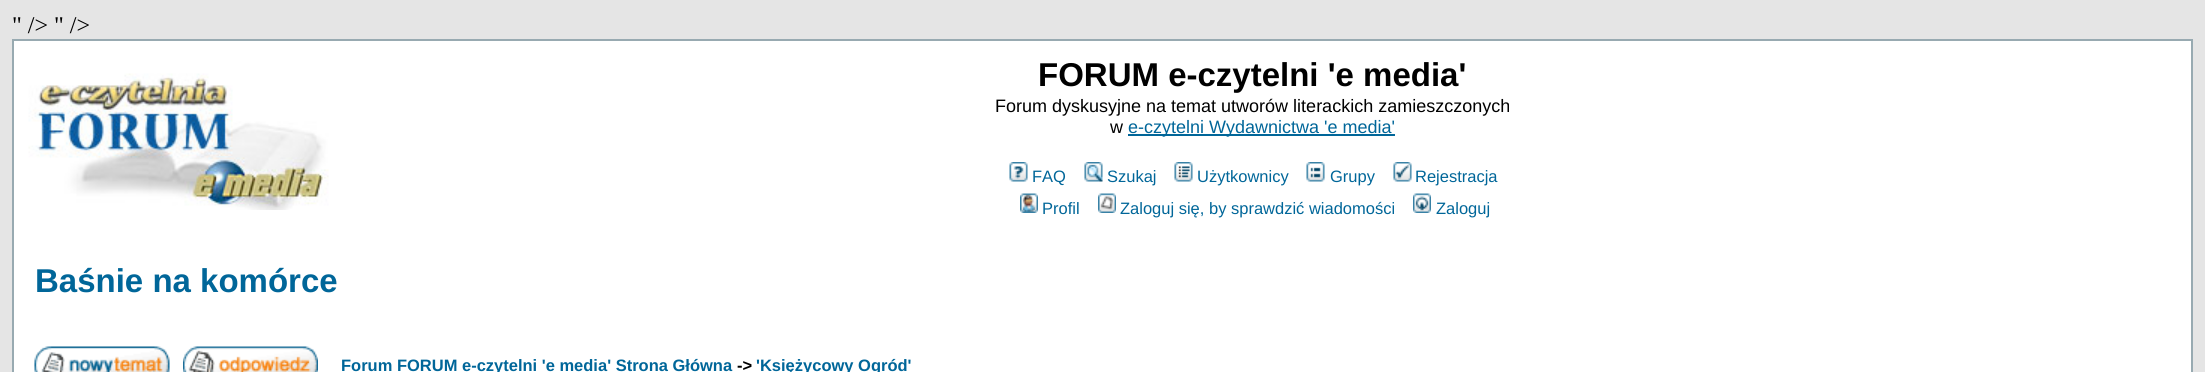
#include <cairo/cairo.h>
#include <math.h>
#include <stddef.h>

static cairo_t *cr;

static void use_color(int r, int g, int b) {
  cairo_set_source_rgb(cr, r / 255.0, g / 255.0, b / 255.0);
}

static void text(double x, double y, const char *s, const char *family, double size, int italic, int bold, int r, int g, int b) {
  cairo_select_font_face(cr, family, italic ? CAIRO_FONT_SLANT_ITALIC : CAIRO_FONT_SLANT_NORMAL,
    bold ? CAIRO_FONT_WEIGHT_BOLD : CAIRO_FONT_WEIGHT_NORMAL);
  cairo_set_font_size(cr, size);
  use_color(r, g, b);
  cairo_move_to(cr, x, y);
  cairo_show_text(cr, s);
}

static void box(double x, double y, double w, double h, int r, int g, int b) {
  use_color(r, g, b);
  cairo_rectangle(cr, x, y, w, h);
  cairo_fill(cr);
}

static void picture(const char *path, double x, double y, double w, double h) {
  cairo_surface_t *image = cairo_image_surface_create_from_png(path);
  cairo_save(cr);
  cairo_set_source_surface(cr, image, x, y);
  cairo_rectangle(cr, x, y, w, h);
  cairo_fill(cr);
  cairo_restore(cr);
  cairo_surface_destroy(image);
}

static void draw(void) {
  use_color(229, 229, 229);
  cairo_paint(cr);
  use_color(255, 255, 255);
  cairo_rectangle(cr, 13, 40, 2179, 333);
  cairo_fill_preserve(cr);
  use_color(152, 170, 177);
  cairo_stroke(cr);
  picture("img_01.png", 28, 73, 301, 137);
  box(1128, 134, 267, 2, 0, 102, 153);
  picture("img_02.png", 1009, 162, 19, 20);
  picture("img_03.png", 1084, 162, 19, 20);
  picture("img_04.png", 1174, 162, 19, 20);
  picture("img_05.png", 1306, 162, 19, 20);
  picture("img_06.png", 1393, 162, 19, 20);
  picture("img_07.png", 1020, 193, 18, 20);
  picture("img_08.png", 1098, 193, 18, 20);
  picture("img_09.png", 1413, 193, 18, 20);
  picture("img_10.png", 34, 346, 136, 26);
  picture("img_11.png", 183, 346, 135, 26);
  text(12, 33, "\" /> \" />", "Liberation Serif", 24, 0, 0, 0, 0, 0);
  text(1038, 86, "FORUM e-czytelni 'e media'", "Liberation Sans", 33, 0, 1, 0, 0, 0);
  text(995, 112, "Forum dyskusyjne na temat utworów literackich zamieszczonych", "Liberation Sans", 18, 0, 0, 0, 0, 0);
  text(1110, 133, "w", "Liberation Sans", 18, 0, 0, 0, 0, 0);
  text(1128, 133, "e-czytelni Wydawnictwa 'e media'", "Liberation Sans", 18, 0, 0, 0, 102, 153);
  text(1032, 182, "FAQ", "Liberation Sans", 16.5, 0, 0, 0, 102, 153);
  text(1107, 182, "Szukaj", "Liberation Sans", 16.5, 0, 0, 0, 102, 153);
  text(1197, 182, "Użytkownicy", "Liberation Sans", 16.5, 0, 0, 0, 102, 153);
  text(1330, 182, "Grupy", "Liberation Sans", 16.5, 0, 0, 0, 102, 153);
  text(1415, 182, "Rejestracja", "Liberation Sans", 16.5, 0, 0, 0, 102, 153);
  text(1042, 214, "Profil", "Liberation Sans", 16.5, 0, 0, 0, 102, 153);
  text(1120, 214, "Zaloguj się, by sprawdzić wiadomości", "Liberation Sans", 16.5, 0, 0, 0, 102, 153);
  text(1436, 214, "Zaloguj", "Liberation Sans", 16.5, 0, 0, 0, 102, 153);
  text(35, 292, "Baśnie na komórce", "Liberation Sans", 33, 0, 1, 0, 102, 153);
  text(341, 371, "Forum FORUM e-czytelni 'e media' Strona Główna", "Liberation Sans", 16.5, 0, 1, 0, 102, 153);
  text(737, 371, "->", "Liberation Sans", 16.5, 0, 1, 0, 0, 0);
  text(756, 371, "'Księżycowy Ogród'", "Liberation Sans", 16.5, 0, 1, 0, 102, 153);
}

int main(void) {
  cairo_surface_t *surface = cairo_image_surface_create(CAIRO_FORMAT_RGB24, 2205, 372);
  cr = cairo_create(surface);
  cairo_font_options_t *options = cairo_font_options_create();
  cairo_font_options_set_hint_metrics(options, CAIRO_HINT_METRICS_OFF);
  cairo_font_options_set_hint_style(options, CAIRO_HINT_STYLE_NONE);
  cairo_set_font_options(cr, options);
  cairo_set_miter_limit(cr, 4);
  draw();
  cairo_surface_write_to_png(surface, "out.png");
  cairo_font_options_destroy(options);
  cairo_destroy(cr);
  cairo_surface_destroy(surface);
  return 0;
}
